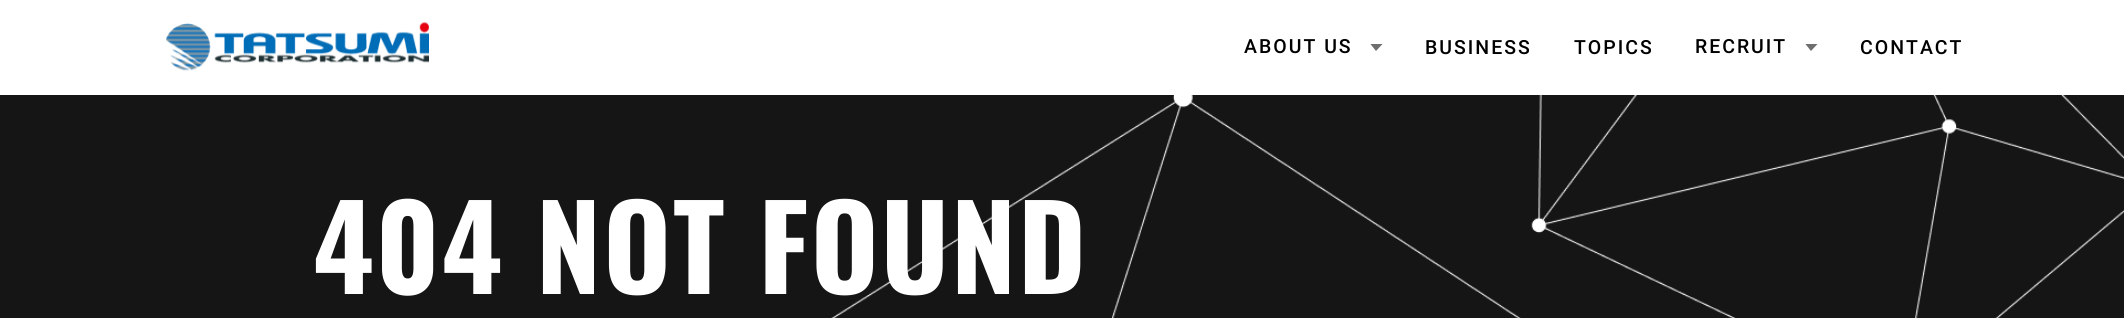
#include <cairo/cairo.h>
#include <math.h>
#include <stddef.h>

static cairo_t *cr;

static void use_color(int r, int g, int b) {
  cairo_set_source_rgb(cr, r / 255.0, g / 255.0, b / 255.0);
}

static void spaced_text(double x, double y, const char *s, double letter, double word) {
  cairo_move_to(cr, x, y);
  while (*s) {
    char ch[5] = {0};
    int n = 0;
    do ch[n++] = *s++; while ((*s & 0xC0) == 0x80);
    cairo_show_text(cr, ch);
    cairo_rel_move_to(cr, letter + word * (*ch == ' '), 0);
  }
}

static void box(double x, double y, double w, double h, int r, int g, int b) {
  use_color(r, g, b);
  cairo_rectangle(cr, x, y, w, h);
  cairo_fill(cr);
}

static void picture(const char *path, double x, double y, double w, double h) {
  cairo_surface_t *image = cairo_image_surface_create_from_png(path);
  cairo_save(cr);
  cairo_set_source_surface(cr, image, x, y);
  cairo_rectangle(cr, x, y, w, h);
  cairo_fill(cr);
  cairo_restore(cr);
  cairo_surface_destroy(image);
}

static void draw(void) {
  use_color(255, 255, 255);
  cairo_paint(cr);
  picture("img_01.png", 166, 22, 263, 49);
  cairo_save(cr);
  cairo_rectangle(cr, 1370, 44, 13, 7);
  cairo_clip(cr);
  use_color(110, 110, 110);
  cairo_new_path(cr);
  cairo_move_to(cr, 1376, 51);
  cairo_line_to(cr, 1370, 43.5);
  cairo_line_to(cr, 1382.5, 44);
  cairo_close_path(cr);
  cairo_fill(cr);
  cairo_restore(cr);
  cairo_save(cr);
  cairo_rectangle(cr, 1805, 44, 13, 7);
  cairo_clip(cr);
  use_color(110, 110, 110);
  cairo_new_path(cr);
  cairo_move_to(cr, 1811, 51);
  cairo_line_to(cr, 1805, 43.5);
  cairo_line_to(cr, 1817.5, 44);
  cairo_close_path(cr);
  cairo_fill(cr);
  cairo_restore(cr);
  box(0, 95, 2124, 223, 21, 21, 21);
  picture("img_02.png", 831, 95, 1293, 223);
  cairo_select_font_face(cr, "Roboto Medium", CAIRO_FONT_SLANT_NORMAL, CAIRO_FONT_WEIGHT_NORMAL);
  cairo_set_font_size(cr, 19.5);
  use_color(0, 0, 0);
  spaced_text(1244, 53, "ABOUT US", 2, 0);
  spaced_text(1425, 54, "BUSINESS", 2, 0);
  spaced_text(1574, 54, "TOPICS", 2, 0);
  spaced_text(1695, 53, "RECRUIT", 2, 0);
  spaced_text(1860, 54, "CONTACT", 2, 0);
  cairo_select_font_face(cr, "Oswald", CAIRO_FONT_SLANT_NORMAL, CAIRO_FONT_WEIGHT_BOLD);
  cairo_set_font_size(cr, 116);
  use_color(255, 255, 255);
  spaced_text(313, 294, "404 NOT FOUND", 2, 0);
}

int main(void) {
  cairo_surface_t *surface = cairo_image_surface_create(CAIRO_FORMAT_RGB24, 2124, 318);
  cr = cairo_create(surface);
  cairo_font_options_t *options = cairo_font_options_create();
  cairo_font_options_set_hint_metrics(options, CAIRO_HINT_METRICS_OFF);
  cairo_font_options_set_hint_style(options, CAIRO_HINT_STYLE_NONE);
  cairo_set_font_options(cr, options);
  cairo_set_miter_limit(cr, 4);
  draw();
  cairo_surface_write_to_png(surface, "out.png");
  cairo_font_options_destroy(options);
  cairo_destroy(cr);
  cairo_surface_destroy(surface);
  return 0;
}
